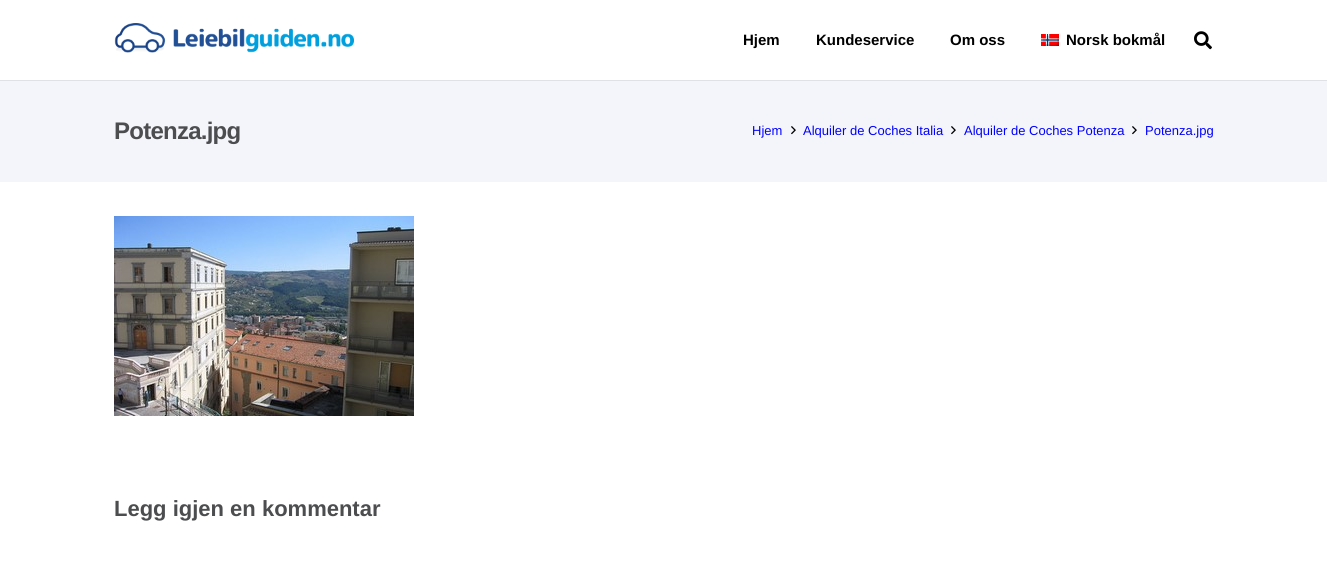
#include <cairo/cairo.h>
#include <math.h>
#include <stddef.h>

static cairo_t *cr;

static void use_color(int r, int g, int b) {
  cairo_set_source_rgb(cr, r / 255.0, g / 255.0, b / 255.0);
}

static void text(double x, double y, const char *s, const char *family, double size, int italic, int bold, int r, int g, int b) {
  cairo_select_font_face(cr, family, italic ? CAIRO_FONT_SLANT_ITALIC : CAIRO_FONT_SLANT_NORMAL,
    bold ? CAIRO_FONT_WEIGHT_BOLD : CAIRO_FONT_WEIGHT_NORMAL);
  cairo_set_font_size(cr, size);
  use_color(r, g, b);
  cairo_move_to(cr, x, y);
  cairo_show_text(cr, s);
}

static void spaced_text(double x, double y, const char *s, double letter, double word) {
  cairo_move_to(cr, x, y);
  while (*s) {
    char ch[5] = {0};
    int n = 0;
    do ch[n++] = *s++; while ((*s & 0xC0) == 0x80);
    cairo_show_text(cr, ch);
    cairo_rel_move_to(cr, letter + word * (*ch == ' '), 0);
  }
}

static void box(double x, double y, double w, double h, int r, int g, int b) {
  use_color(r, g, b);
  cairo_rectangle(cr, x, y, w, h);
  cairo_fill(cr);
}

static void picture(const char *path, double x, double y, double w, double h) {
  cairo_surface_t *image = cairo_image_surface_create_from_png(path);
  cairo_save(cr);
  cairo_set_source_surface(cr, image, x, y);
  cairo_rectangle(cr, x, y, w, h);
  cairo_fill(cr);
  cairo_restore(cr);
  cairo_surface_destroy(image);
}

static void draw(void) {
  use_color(255, 255, 255);
  cairo_paint(cr);
  box(0, 80, 1327, 1, 224, 225, 230);
  picture("img_01.png", 114, 23, 240, 30);
  picture("img_02.png", 1041, 34, 18, 12);
  picture("img_03.png", 1194, 31, 18, 19);
  box(0, 81, 1327, 101, 244, 245, 250);
  picture("img_04.png", 791, 126, 5, 9);
  picture("img_04.png", 951, 126, 5, 9);
  picture("img_04.png", 1132, 126, 5, 9);
  picture("img_05.png", 114, 216, 300, 200);
  text(743, 45, "Hjem", "Liberation Sans", 15, 0, 1, 0, 0, 0);
  text(816, 45, "Kundeservice", "Liberation Sans", 15, 0, 1, 0, 0, 0);
  text(950, 45, "Om oss", "Liberation Sans", 15, 0, 1, 0, 0, 0);
  text(1066, 45, "Norsk bokmål", "Liberation Sans", 15, 0, 1, 0, 0, 0);
  cairo_set_font_size(cr, 24);
  use_color(76, 77, 79);
  spaced_text(114, 139, "Potenza.jpg", -0.75, 0);
  text(752, 135, "Hjem", "Liberation Sans", 13, 0, 0, 0, 0, 255);
  text(803, 135, "Alquiler de Coches Italia", "Liberation Sans", 13, 0, 0, 0, 0, 255);
  text(964, 135, "Alquiler de Coches Potenza", "Liberation Sans", 13, 0, 0, 0, 0, 255);
  text(1145, 135, "Potenza.jpg", "Liberation Sans", 13, 0, 0, 0, 0, 255);
  text(114, 516, "Legg igjen en kommentar", "Liberation Sans", 22, 0, 1, 76, 77, 79);
}

int main(void) {
  cairo_surface_t *surface = cairo_image_surface_create(CAIRO_FORMAT_RGB24, 1327, 566);
  cr = cairo_create(surface);
  cairo_font_options_t *options = cairo_font_options_create();
  cairo_font_options_set_hint_metrics(options, CAIRO_HINT_METRICS_OFF);
  cairo_font_options_set_hint_style(options, CAIRO_HINT_STYLE_NONE);
  cairo_set_font_options(cr, options);
  cairo_set_miter_limit(cr, 4);
  draw();
  cairo_surface_write_to_png(surface, "out.png");
  cairo_font_options_destroy(options);
  cairo_destroy(cr);
  cairo_surface_destroy(surface);
  return 0;
}
